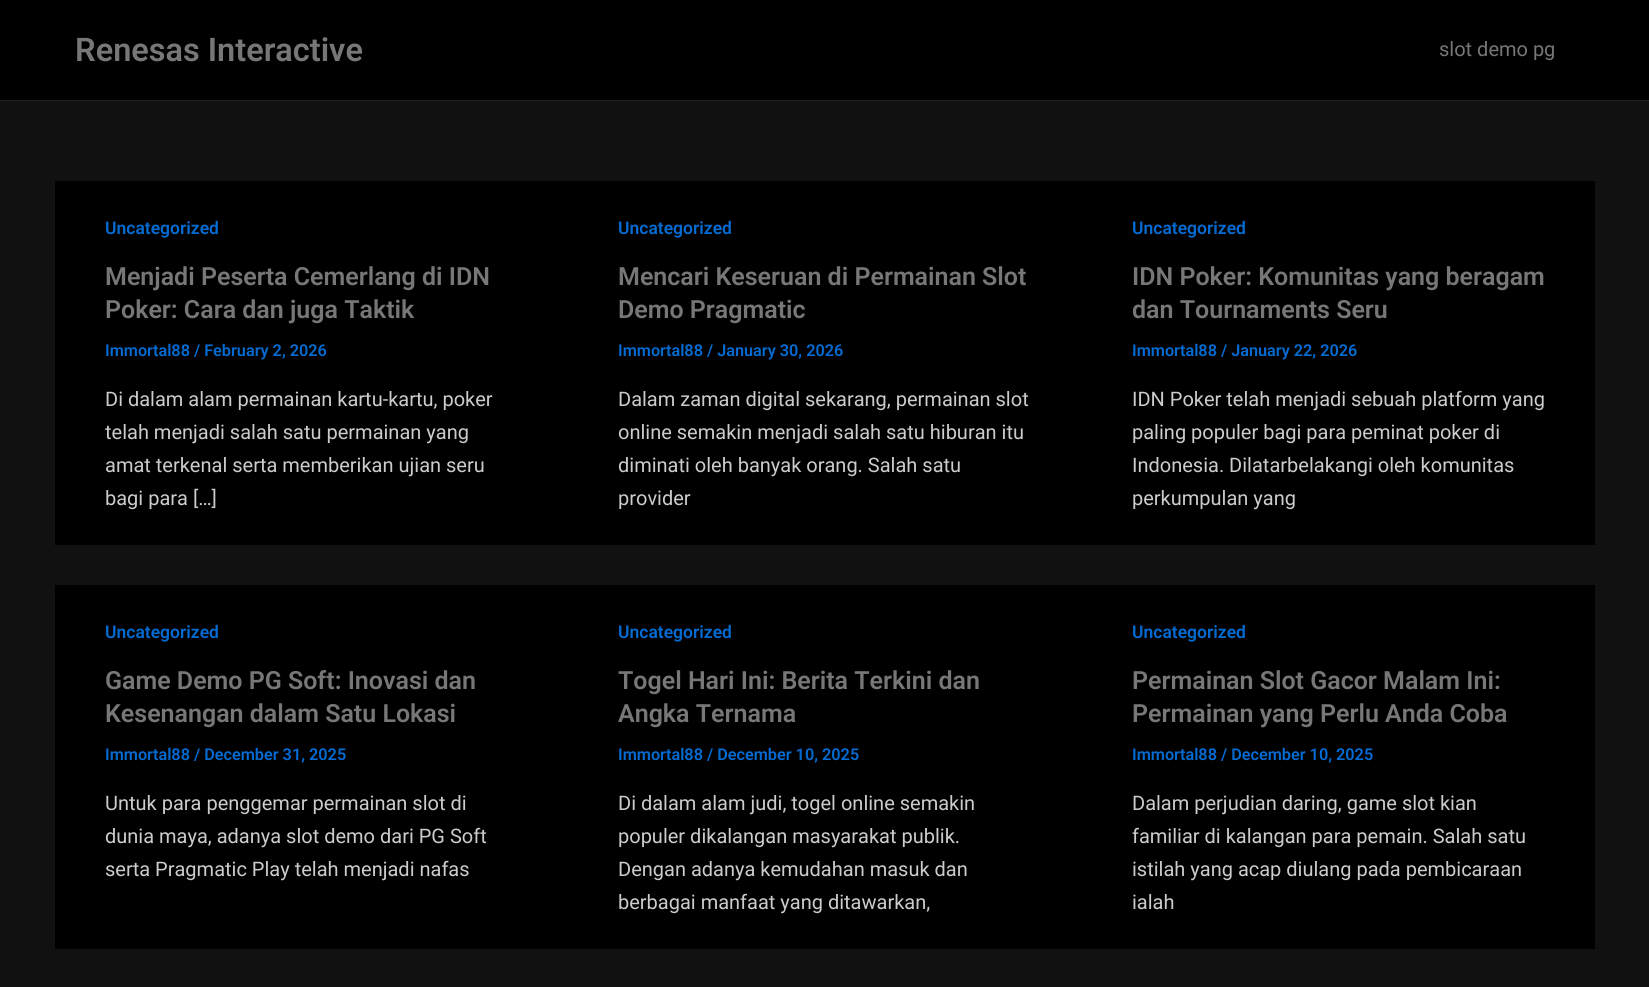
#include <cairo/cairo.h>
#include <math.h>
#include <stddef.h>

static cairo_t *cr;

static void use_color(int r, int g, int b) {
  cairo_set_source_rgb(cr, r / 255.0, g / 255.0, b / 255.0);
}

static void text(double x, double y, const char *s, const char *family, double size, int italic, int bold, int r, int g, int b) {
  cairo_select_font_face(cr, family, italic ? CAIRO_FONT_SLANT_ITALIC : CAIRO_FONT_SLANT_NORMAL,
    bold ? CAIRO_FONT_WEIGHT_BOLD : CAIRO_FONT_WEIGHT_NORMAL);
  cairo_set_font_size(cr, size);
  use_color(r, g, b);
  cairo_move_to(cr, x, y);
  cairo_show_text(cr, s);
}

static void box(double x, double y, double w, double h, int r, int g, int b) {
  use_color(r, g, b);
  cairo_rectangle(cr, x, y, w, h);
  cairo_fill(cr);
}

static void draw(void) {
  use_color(17, 17, 17);
  cairo_paint(cr);
  box(0, 0, 1649, 100, 0, 0, 0);
  box(0, 100, 1649, 1, 34, 34, 34);
  box(55, 181, 1540, 364, 0, 0, 0);
  box(55, 585, 1540, 364, 0, 0, 0);
  text(75, 61, "Renesas Interactive", "Roboto SemiBold", 32.5, 0, 0, 119, 119, 119);
  text(1439, 56, "slot demo pg", "Roboto", 20, 0, 0, 119, 119, 119);
  text(105, 234, "Uncategorized", "Roboto SemiBold", 17.5, 0, 0, 4, 107, 210);
  text(105, 285, "Menjadi Peserta Cemerlang di IDN", "Roboto SemiBold", 25, 0, 0, 119, 119, 119);
  text(105, 318, "Poker: Cara dan juga Taktik", "Roboto SemiBold", 25, 0, 0, 119, 119, 119);
  text(105, 356, "Immortal88 / February 2, 2026", "Roboto SemiBold", 16.25, 0, 0, 4, 107, 210);
  text(105, 406, "Di dalam alam permainan kartu-kartu, poker", "Roboto", 20, 0, 0, 204, 204, 204);
  text(105, 439, "telah menjadi salah satu permainan yang", "Roboto", 20, 0, 0, 204, 204, 204);
  text(105, 472, "amat terkenal serta memberikan ujian seru", "Roboto", 20, 0, 0, 204, 204, 204);
  text(105, 505, "bagi para […]", "Roboto", 20, 0, 0, 204, 204, 204);
  text(618, 234, "Uncategorized", "Roboto SemiBold", 17.5, 0, 0, 4, 107, 210);
  text(618, 285, "Mencari Keseruan di Permainan Slot", "Roboto SemiBold", 25, 0, 0, 119, 119, 119);
  text(618, 318, "Demo Pragmatic", "Roboto SemiBold", 25, 0, 0, 119, 119, 119);
  text(618, 356, "Immortal88 / January 30, 2026", "Roboto SemiBold", 16.25, 0, 0, 4, 107, 210);
  text(618, 406, "Dalam zaman digital sekarang, permainan slot", "Roboto", 20, 0, 0, 204, 204, 204);
  text(618, 439, "online semakin menjadi salah satu hiburan itu", "Roboto", 20, 0, 0, 204, 204, 204);
  text(618, 472, "diminati oleh banyak orang. Salah satu", "Roboto", 20, 0, 0, 204, 204, 204);
  text(618, 505, "provider", "Roboto", 20, 0, 0, 204, 204, 204);
  text(1132, 234, "Uncategorized", "Roboto SemiBold", 17.5, 0, 0, 4, 107, 210);
  text(1132, 285, "IDN Poker: Komunitas yang beragam", "Roboto SemiBold", 25, 0, 0, 119, 119, 119);
  text(1132, 318, "dan Tournaments Seru", "Roboto SemiBold", 25, 0, 0, 119, 119, 119);
  text(1132, 356, "Immortal88 / January 22, 2026", "Roboto SemiBold", 16.25, 0, 0, 4, 107, 210);
  text(1132, 406, "IDN Poker telah menjadi sebuah platform yang", "Roboto", 20, 0, 0, 204, 204, 204);
  text(1132, 439, "paling populer bagi para peminat poker di", "Roboto", 20, 0, 0, 204, 204, 204);
  text(1132, 472, "Indonesia. Dilatarbelakangi oleh komunitas", "Roboto", 20, 0, 0, 204, 204, 204);
  text(1132, 505, "perkumpulan yang", "Roboto", 20, 0, 0, 204, 204, 204);
  text(105, 638, "Uncategorized", "Roboto SemiBold", 17.5, 0, 0, 4, 107, 210);
  text(105, 689, "Game Demo PG Soft: Inovasi dan", "Roboto SemiBold", 25, 0, 0, 119, 119, 119);
  text(105, 722, "Kesenangan dalam Satu Lokasi", "Roboto SemiBold", 25, 0, 0, 119, 119, 119);
  text(105, 760, "Immortal88 / December 31, 2025", "Roboto SemiBold", 16.25, 0, 0, 4, 107, 210);
  text(105, 810, "Untuk para penggemar permainan slot di", "Roboto", 20, 0, 0, 204, 204, 204);
  text(105, 843, "dunia maya, adanya slot demo dari PG Soft", "Roboto", 20, 0, 0, 204, 204, 204);
  text(105, 876, "serta Pragmatic Play telah menjadi nafas", "Roboto", 20, 0, 0, 204, 204, 204);
  text(618, 638, "Uncategorized", "Roboto SemiBold", 17.5, 0, 0, 4, 107, 210);
  text(618, 689, "Togel Hari Ini: Berita Terkini dan", "Roboto SemiBold", 25, 0, 0, 119, 119, 119);
  text(618, 722, "Angka Ternama", "Roboto SemiBold", 25, 0, 0, 119, 119, 119);
  text(618, 760, "Immortal88 / December 10, 2025", "Roboto SemiBold", 16.25, 0, 0, 4, 107, 210);
  text(618, 810, "Di dalam alam judi, togel online semakin", "Roboto", 20, 0, 0, 204, 204, 204);
  text(618, 843, "populer dikalangan masyarakat publik.", "Roboto", 20, 0, 0, 204, 204, 204);
  text(618, 876, "Dengan adanya kemudahan masuk dan", "Roboto", 20, 0, 0, 204, 204, 204);
  text(618, 909, "berbagai manfaat yang ditawarkan,", "Roboto", 20, 0, 0, 204, 204, 204);
  text(1132, 638, "Uncategorized", "Roboto SemiBold", 17.5, 0, 0, 4, 107, 210);
  text(1132, 689, "Permainan Slot Gacor Malam Ini:", "Roboto SemiBold", 25, 0, 0, 119, 119, 119);
  text(1132, 722, "Permainan yang Perlu Anda Coba", "Roboto SemiBold", 25, 0, 0, 119, 119, 119);
  text(1132, 760, "Immortal88 / December 10, 2025", "Roboto SemiBold", 16.25, 0, 0, 4, 107, 210);
  text(1132, 810, "Dalam perjudian daring, game slot kian", "Roboto", 20, 0, 0, 204, 204, 204);
  text(1132, 843, "familiar di kalangan para pemain. Salah satu", "Roboto", 20, 0, 0, 204, 204, 204);
  text(1132, 876, "istilah yang acap diulang pada pembicaraan", "Roboto", 20, 0, 0, 204, 204, 204);
  text(1132, 909, "ialah", "Roboto", 20, 0, 0, 204, 204, 204);
}

int main(void) {
  cairo_surface_t *surface = cairo_image_surface_create(CAIRO_FORMAT_RGB24, 1649, 987);
  cr = cairo_create(surface);
  cairo_font_options_t *options = cairo_font_options_create();
  cairo_font_options_set_hint_metrics(options, CAIRO_HINT_METRICS_OFF);
  cairo_font_options_set_hint_style(options, CAIRO_HINT_STYLE_NONE);
  cairo_set_font_options(cr, options);
  cairo_set_miter_limit(cr, 4);
  draw();
  cairo_surface_write_to_png(surface, "out.png");
  cairo_font_options_destroy(options);
  cairo_destroy(cr);
  cairo_surface_destroy(surface);
  return 0;
}
